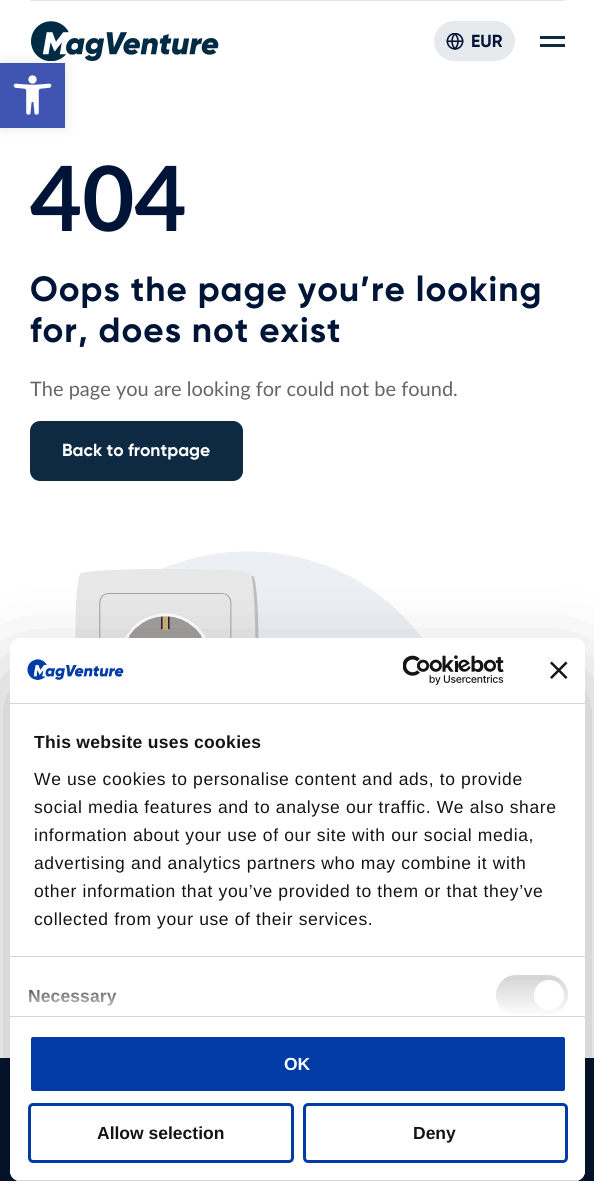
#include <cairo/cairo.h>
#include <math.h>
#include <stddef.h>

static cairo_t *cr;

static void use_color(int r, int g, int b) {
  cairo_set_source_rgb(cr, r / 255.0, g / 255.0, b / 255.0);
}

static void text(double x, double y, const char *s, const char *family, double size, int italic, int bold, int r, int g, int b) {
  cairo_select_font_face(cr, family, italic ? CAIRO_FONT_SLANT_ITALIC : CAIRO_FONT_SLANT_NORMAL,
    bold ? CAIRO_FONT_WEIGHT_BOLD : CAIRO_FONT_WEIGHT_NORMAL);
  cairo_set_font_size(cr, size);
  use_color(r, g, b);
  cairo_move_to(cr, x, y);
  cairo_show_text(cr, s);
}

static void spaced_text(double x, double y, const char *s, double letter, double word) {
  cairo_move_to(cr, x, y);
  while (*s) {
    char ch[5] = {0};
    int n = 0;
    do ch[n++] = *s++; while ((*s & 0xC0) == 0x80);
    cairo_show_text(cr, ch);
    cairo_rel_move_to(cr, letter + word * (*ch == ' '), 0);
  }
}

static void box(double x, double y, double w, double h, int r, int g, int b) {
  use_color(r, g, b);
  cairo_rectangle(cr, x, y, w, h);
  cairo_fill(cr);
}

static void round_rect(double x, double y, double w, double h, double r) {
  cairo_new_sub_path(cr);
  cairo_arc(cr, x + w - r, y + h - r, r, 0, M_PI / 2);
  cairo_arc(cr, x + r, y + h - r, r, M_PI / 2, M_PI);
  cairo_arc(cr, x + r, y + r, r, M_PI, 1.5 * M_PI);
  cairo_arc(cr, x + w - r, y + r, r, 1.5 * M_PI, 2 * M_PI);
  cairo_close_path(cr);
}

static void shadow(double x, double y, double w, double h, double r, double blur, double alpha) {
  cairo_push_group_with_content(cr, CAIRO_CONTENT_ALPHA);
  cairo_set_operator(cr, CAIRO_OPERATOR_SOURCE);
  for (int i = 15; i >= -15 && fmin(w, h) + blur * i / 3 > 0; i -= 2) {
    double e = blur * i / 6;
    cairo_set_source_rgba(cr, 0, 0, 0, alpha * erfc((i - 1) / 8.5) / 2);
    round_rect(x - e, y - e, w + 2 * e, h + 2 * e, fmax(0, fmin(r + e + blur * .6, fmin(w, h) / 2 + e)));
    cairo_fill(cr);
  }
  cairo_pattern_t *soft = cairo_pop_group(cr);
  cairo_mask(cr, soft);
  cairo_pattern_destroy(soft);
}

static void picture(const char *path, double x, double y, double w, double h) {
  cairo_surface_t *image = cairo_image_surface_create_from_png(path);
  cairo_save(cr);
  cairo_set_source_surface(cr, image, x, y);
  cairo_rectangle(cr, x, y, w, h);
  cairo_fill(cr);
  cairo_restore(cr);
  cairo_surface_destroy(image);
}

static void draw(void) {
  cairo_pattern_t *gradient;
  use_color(255, 255, 255);
  cairo_paint(cr);
  box(30, 0, 535, 1, 230, 230, 230);
  picture("img_01.png", 31, 21, 188, 40);
  use_color(231, 234, 236);
  round_rect(434, 21, 81, 40, 20);
  cairo_fill(cr);
  picture("img_02.png", 446, 33, 18, 17);
  box(540, 36, 25, 3, 14, 42, 67);
  box(540, 44, 25, 3, 14, 42, 67);
  round_rect(31.5, 422.5, 210, 57, 8.5);
  cairo_fill_preserve(cr);
  cairo_set_line_width(cr, 3);
  cairo_stroke(cr);
  picture("img_03.png", 74, 551, 348, 87);
  box(0, 1058, 594, 123, 4, 20, 48);
  use_color(0, 0, 0);
  shadow(0, 63, 65, 65, 0, 6, 0.1);
  box(0, 63, 65, 65, 64, 84, 178);
  picture("img_04.png", 13, 75, 39, 40);
  use_color(0, 0, 0);
  shadow(10, 678, 575, 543, 10, 42.5, 0.3);
  use_color(255, 255, 255);
  round_rect(10, 638, 575, 543, 10);
  cairo_fill(cr);
  box(10, 703, 575, 1, 214, 214, 214);
  picture("img_05.png", 27, 659, 97, 22);
  picture("img_06.png", 403, 655, 101, 30);
  picture("img_07.png", 550, 661, 18, 18);
  box(10, 956, 575, 1, 214, 214, 214);
  round_rect(496, 975, 72, 40, 20);
  cairo_fill(cr);
  use_color(255, 255, 255);
  cairo_arc(cr, 549, 995, 15, 0, 2 * M_PI);
  cairo_fill(cr);
  cairo_new_path(cr);
  cairo_move_to(cr, 10, 1016);
  cairo_line_to(cr, 585, 1016);
  cairo_line_to(cr, 585, 1171);
  cairo_curve_to(cr, 585, 1176.5, 580.5, 1181, 575, 1181);
  cairo_line_to(cr, 20, 1181);
  cairo_curve_to(cr, 14.5, 1181, 10, 1176.5, 10, 1171);
  cairo_close_path(cr);
  cairo_fill(cr);
  cairo_save(cr);
  round_rect(10, 638, 575, 543, 10);
  cairo_clip(cr);
  box(10, 1180, 575, 1, 214, 214, 214);
  cairo_restore(cr);
  box(10, 1016, 575, 1, 214, 214, 214);
  use_color(1, 60, 166);
  round_rect(29.5, 1035.5, 537, 57, 3.5);
  cairo_fill_preserve(cr);
  use_color(255, 255, 255);
  cairo_stroke(cr);
  round_rect(29.5, 1104.5, 263, 57, 3.5);
  use_color(1, 60, 166);
  cairo_stroke(cr);
  round_rect(304.5, 1104.5, 262, 57, 3.5);
  cairo_stroke(cr);
  text(471, 47, "EUR", "Gilroy", 17.5, 0, 1, 0, 20, 56);
  text(30, 231, "404", "Lato", 90, 0, 1, 0, 20, 56);
  cairo_select_font_face(cr, "Gilroy", CAIRO_FONT_SLANT_NORMAL, CAIRO_FONT_WEIGHT_BOLD);
  cairo_set_font_size(cr, 35);
  spaced_text(30, 301, "Oops the page you’re looking", 1.05, 0);
  spaced_text(30, 342, "for, does not exist", 1.05, 0);
  text(30, 396, "The page you are looking for could not be found.", "Lato", 20, 0, 0, 102, 101, 101);
  text(62, 456, "Back to frontpage", "Gilroy", 17.5, 0, 1, 255, 255, 255);
  cairo_select_font_face(cr, "Liberation Sans", CAIRO_FONT_SLANT_NORMAL, CAIRO_FONT_WEIGHT_BOLD);
  use_color(20, 20, 20);
  spaced_text(34, 748, "This website uses cookies", 0.3, 0);
  cairo_select_font_face(cr, "Liberation Sans", CAIRO_FONT_SLANT_NORMAL, CAIRO_FONT_WEIGHT_NORMAL);
  spaced_text(34, 785, "We use cookies to personalise content and ads, to provide", 0.62, 0);
  spaced_text(34, 813, "social media features and to analyse our traffic. We also share", 0.62, 0);
  spaced_text(34, 841, "information about your use of our site with our social media,", 0.62, 0);
  spaced_text(34, 869, "advertising and analytics partners who may combine it with", 0.62, 0);
  spaced_text(34, 897, "other information that you’ve provided to them or that they’ve", 0.62, 0);
  spaced_text(34, 925, "collected from your use of their services.", 0.62, 0);
  cairo_select_font_face(cr, "Liberation Sans", CAIRO_FONT_SLANT_NORMAL, CAIRO_FONT_WEIGHT_BOLD);
  spaced_text(28, 1002, "Necessary", 0.1, 0);
  gradient = cairo_pattern_create_linear(298, 1017, 298, 977);
  cairo_pattern_add_color_stop_rgba(gradient, 0, 1, 1, 1, 1);
  cairo_pattern_add_color_stop_rgba(gradient, 1, 1, 1, 1, 0);
  cairo_set_source(cr, gradient);
  cairo_pattern_destroy(gradient);
  cairo_rectangle(cr, 28, 980, 540, 35);
  cairo_fill(cr);
  text(284, 1070, "OK", "Liberation Sans", 17.5, 0, 1, 255, 255, 255);
  text(97, 1139, "Allow selection", "Liberation Sans", 17.5, 0, 1, 20, 20, 20);
  text(413, 1139, "Deny", "Liberation Sans", 17.5, 0, 1, 20, 20, 20);
}

int main(void) {
  cairo_surface_t *surface = cairo_image_surface_create(CAIRO_FORMAT_RGB24, 594, 1181);
  cr = cairo_create(surface);
  cairo_font_options_t *options = cairo_font_options_create();
  cairo_font_options_set_hint_metrics(options, CAIRO_HINT_METRICS_OFF);
  cairo_font_options_set_hint_style(options, CAIRO_HINT_STYLE_NONE);
  cairo_set_font_options(cr, options);
  cairo_set_miter_limit(cr, 4);
  draw();
  cairo_surface_write_to_png(surface, "out.png");
  cairo_font_options_destroy(options);
  cairo_destroy(cr);
  cairo_surface_destroy(surface);
  return 0;
}
